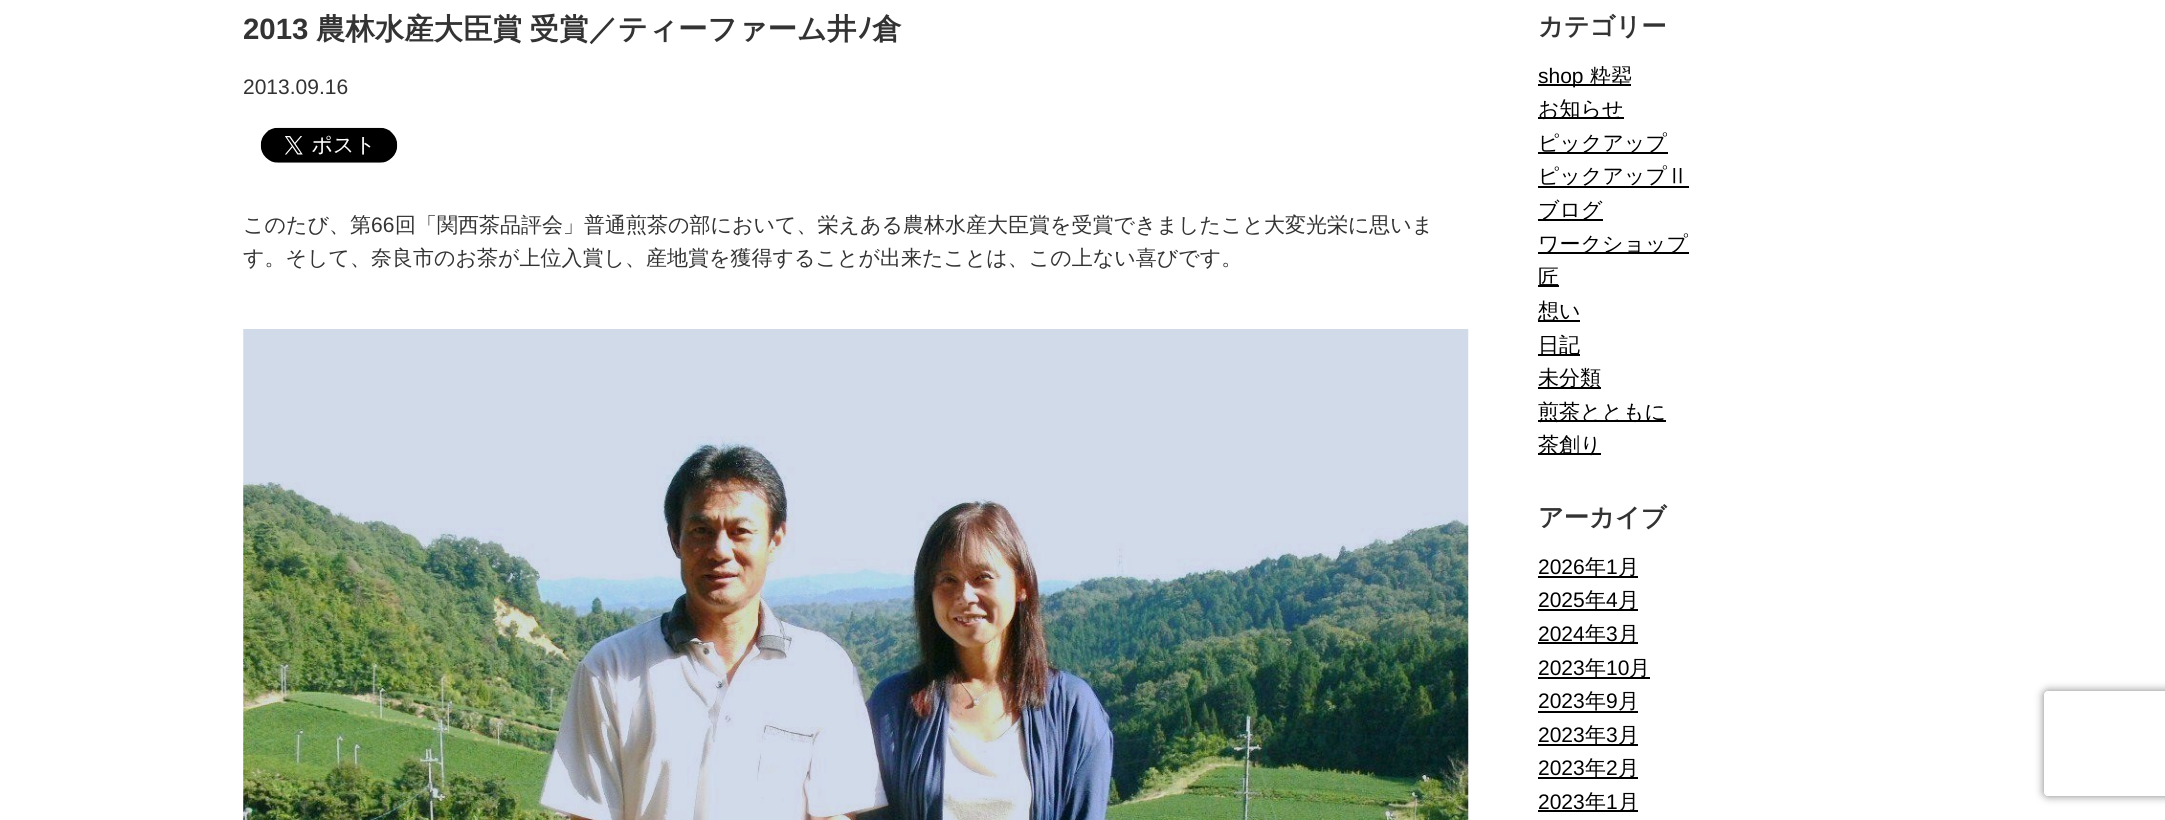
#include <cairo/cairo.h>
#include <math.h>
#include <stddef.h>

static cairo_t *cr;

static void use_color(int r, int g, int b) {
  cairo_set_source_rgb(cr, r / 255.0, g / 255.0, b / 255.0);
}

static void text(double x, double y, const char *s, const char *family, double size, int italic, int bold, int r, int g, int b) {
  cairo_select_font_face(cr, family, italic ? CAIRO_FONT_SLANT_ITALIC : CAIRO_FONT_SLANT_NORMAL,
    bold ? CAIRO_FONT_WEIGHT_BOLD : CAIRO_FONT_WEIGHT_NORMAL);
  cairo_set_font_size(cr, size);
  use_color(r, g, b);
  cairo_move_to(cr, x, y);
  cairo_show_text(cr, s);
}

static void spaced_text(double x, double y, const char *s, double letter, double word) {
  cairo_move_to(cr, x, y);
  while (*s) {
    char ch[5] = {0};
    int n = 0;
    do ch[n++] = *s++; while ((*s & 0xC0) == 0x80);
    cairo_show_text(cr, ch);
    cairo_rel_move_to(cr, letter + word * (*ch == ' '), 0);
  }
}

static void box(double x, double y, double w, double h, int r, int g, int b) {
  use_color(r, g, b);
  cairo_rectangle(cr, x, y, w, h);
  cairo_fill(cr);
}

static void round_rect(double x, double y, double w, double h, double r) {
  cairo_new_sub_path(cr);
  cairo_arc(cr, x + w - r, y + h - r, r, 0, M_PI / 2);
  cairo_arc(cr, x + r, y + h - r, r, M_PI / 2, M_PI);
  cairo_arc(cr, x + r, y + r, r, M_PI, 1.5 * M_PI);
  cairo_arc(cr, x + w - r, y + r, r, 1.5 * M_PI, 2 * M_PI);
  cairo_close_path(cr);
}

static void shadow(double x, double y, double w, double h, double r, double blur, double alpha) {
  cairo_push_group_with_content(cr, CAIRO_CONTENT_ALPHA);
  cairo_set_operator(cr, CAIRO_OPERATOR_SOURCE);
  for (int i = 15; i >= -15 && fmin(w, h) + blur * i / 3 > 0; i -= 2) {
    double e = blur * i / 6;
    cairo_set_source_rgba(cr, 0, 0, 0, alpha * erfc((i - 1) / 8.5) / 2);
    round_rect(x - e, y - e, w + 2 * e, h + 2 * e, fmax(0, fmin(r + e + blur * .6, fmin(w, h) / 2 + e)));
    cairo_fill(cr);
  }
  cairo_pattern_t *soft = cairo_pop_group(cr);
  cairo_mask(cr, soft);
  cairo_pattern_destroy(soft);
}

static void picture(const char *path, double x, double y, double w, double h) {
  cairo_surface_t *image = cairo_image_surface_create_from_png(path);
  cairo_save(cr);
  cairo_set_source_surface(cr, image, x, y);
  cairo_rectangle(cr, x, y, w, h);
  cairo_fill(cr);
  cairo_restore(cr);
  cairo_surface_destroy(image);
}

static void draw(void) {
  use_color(255, 255, 255);
  cairo_paint(cr);
  picture("img_01.png", 260, 127, 138, 36);
  picture("img_02.png", 243, 329, 1226, 491);
  box(1538, 84, 93, 2, 0, 0, 0);
  box(1538, 117, 86, 2, 0, 0, 0);
  box(1538, 152, 130, 2, 0, 0, 0);
  box(1538, 186, 151, 2, 0, 0, 0);
  box(1538, 219, 65, 2, 0, 0, 0);
  box(1538, 252, 151, 2, 0, 0, 0);
  box(1538, 285, 21, 2, 0, 0, 0);
  box(1538, 320, 42, 2, 0, 0, 0);
  box(1538, 354, 42, 2, 0, 0, 0);
  box(1538, 387, 63, 2, 0, 0, 0);
  box(1538, 420, 128, 2, 0, 0, 0);
  box(1538, 453, 63, 2, 0, 0, 0);
  box(1538, 576, 100, 2, 0, 0, 0);
  box(1538, 609, 100, 2, 0, 0, 0);
  box(1538, 642, 100, 2, 0, 0, 0);
  box(1538, 677, 112, 2, 0, 0, 0);
  box(1538, 711, 100, 2, 0, 0, 0);
  box(1538, 744, 100, 2, 0, 0, 0);
  box(1538, 777, 100, 2, 0, 0, 0);
  box(1538, 810, 100, 2, 0, 0, 0);
  cairo_save(cr);
  cairo_set_fill_rule(cr, CAIRO_FILL_RULE_EVEN_ODD);
  cairo_new_path(cr);
  cairo_move_to(cr, 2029, 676);
  cairo_line_to(cr, 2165, 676);
  cairo_line_to(cr, 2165, 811);
  cairo_line_to(cr, 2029, 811);
  cairo_close_path(cr);
  cairo_move_to(cr, 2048, 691);
  cairo_line_to(cr, 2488, 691);
  cairo_curve_to(cr, 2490, 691, 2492, 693, 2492, 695);
  cairo_line_to(cr, 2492, 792);
  cairo_curve_to(cr, 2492, 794, 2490, 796, 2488, 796);
  cairo_line_to(cr, 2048, 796);
  cairo_curve_to(cr, 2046, 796, 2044, 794, 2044, 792);
  cairo_line_to(cr, 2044, 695);
  cairo_curve_to(cr, 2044, 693, 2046, 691, 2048, 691);
  cairo_close_path(cr);
  cairo_clip(cr);
  use_color(128, 128, 128);
  shadow(2044, 691, 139, 105, 4, 4.5, 1);
  cairo_restore(cr);
  text(243, 39, "2013", "Liberation Sans", 29.4, 0, 1, 51, 51, 51);
  cairo_select_font_face(cr, "WenQuanYi Zen Hei", CAIRO_FONT_SLANT_NORMAL, CAIRO_FONT_WEIGHT_BOLD);
  spaced_text(316, 39, "農林水産大臣賞 受賞／ティーファーム井", 0, -1);
  text(857, 39, "ﾉ", "IPAPGothic", 29.4, 0, 1, 51, 51, 51);
  text(872, 39, "倉", "WenQuanYi Zen Hei", 29.4, 0, 1, 51, 51, 51);
  text(243, 94, "2013.09.16", "Liberation Sans", 21, 0, 0, 51, 51, 51);
  text(243, 232, "このたび、第", "WenQuanYi Zen Hei Medium", 21, 0, 0, 51, 51, 51);
  text(371, 232, "66", "Liberation Sans", 21, 0, 0, 51, 51, 51);
  text(395, 232, "回「関西茶品評会」普通煎茶の部において、栄えある農林水産大臣賞を受賞できましたこと大変光栄に思いま", "WenQuanYi Zen Hei Medium", 21, 0, 0, 51, 51, 51);
  text(243, 265, "す。そして、奈良市のお茶が上位入賞し、産地賞を獲得することが出来たことは、この上ない喜びです。", "WenQuanYi Zen Hei Medium", 21, 0, 0, 51, 51, 51);
  text(1538, 35, "カテゴリー", "WenQuanYi Zen Hei", 25.25, 0, 1, 51, 51, 51);
  text(1538, 83, "shop", "Liberation Sans", 21, 0, 0, 0, 0, 0);
  text(1590, 83, "粋翆", "WenQuanYi Zen Hei Medium", 21, 0, 0, 0, 0, 0);
  text(1538, 116, "お知らせ", "WenQuanYi Zen Hei Medium", 21, 0, 0, 0, 0, 0);
  text(1538, 150, "ピックアップ", "WenQuanYi Zen Hei Medium", 21, 0, 0, 0, 0, 0);
  text(1538, 183, "ピックアップⅡ", "WenQuanYi Zen Hei Medium", 21, 0, 0, 0, 0, 0);
  text(1538, 217, "ブログ", "WenQuanYi Zen Hei Medium", 21, 0, 0, 0, 0, 0);
  text(1538, 251, "ワークショップ", "WenQuanYi Zen Hei Medium", 21, 0, 0, 0, 0, 0);
  text(1538, 284, "匠", "WenQuanYi Zen Hei Medium", 21, 0, 0, 0, 0, 0);
  text(1538, 318, "想い", "WenQuanYi Zen Hei Medium", 21, 0, 0, 0, 0, 0);
  text(1538, 352, "日記", "WenQuanYi Zen Hei Medium", 21, 0, 0, 0, 0, 0);
  text(1538, 385, "未分類", "WenQuanYi Zen Hei Medium", 21, 0, 0, 0, 0, 0);
  text(1538, 419, "煎茶とともに", "WenQuanYi Zen Hei Medium", 21, 0, 0, 0, 0, 0);
  text(1538, 452, "茶創り", "WenQuanYi Zen Hei Medium", 21, 0, 0, 0, 0, 0);
  text(1538, 526, "アーカイブ", "WenQuanYi Zen Hei", 25.25, 0, 1, 51, 51, 51);
  text(1538, 574, "2026", "Liberation Sans", 21, 0, 0, 0, 0, 0);
  text(1585, 574, "年", "WenQuanYi Zen Hei Medium", 21, 0, 0, 0, 0, 0);
  text(1606, 574, "1", "Liberation Sans", 21, 0, 0, 0, 0, 0);
  text(1618, 574, "月", "WenQuanYi Zen Hei Medium", 21, 0, 0, 0, 0, 0);
  text(1538, 607, "2025", "Liberation Sans", 21, 0, 0, 0, 0, 0);
  text(1585, 607, "年", "WenQuanYi Zen Hei Medium", 21, 0, 0, 0, 0, 0);
  text(1606, 607, "4", "Liberation Sans", 21, 0, 0, 0, 0, 0);
  text(1618, 607, "月", "WenQuanYi Zen Hei Medium", 21, 0, 0, 0, 0, 0);
  text(1538, 641, "2024", "Liberation Sans", 21, 0, 0, 0, 0, 0);
  text(1585, 641, "年", "WenQuanYi Zen Hei Medium", 21, 0, 0, 0, 0, 0);
  text(1606, 641, "3", "Liberation Sans", 21, 0, 0, 0, 0, 0);
  text(1618, 641, "月", "WenQuanYi Zen Hei Medium", 21, 0, 0, 0, 0, 0);
  text(1538, 675, "2023", "Liberation Sans", 21, 0, 0, 0, 0, 0);
  text(1585, 675, "年", "WenQuanYi Zen Hei Medium", 21, 0, 0, 0, 0, 0);
  text(1606, 675, "10", "Liberation Sans", 21, 0, 0, 0, 0, 0);
  text(1629, 675, "月", "WenQuanYi Zen Hei Medium", 21, 0, 0, 0, 0, 0);
  text(1538, 708, "2023", "Liberation Sans", 21, 0, 0, 0, 0, 0);
  text(1585, 708, "年", "WenQuanYi Zen Hei Medium", 21, 0, 0, 0, 0, 0);
  text(1606, 708, "9", "Liberation Sans", 21, 0, 0, 0, 0, 0);
  text(1618, 708, "月", "WenQuanYi Zen Hei Medium", 21, 0, 0, 0, 0, 0);
  text(1538, 742, "2023", "Liberation Sans", 21, 0, 0, 0, 0, 0);
  text(1585, 742, "年", "WenQuanYi Zen Hei Medium", 21, 0, 0, 0, 0, 0);
  text(1606, 742, "3", "Liberation Sans", 21, 0, 0, 0, 0, 0);
  text(1618, 742, "月", "WenQuanYi Zen Hei Medium", 21, 0, 0, 0, 0, 0);
  text(1538, 775, "2023", "Liberation Sans", 21, 0, 0, 0, 0, 0);
  text(1585, 775, "年", "WenQuanYi Zen Hei Medium", 21, 0, 0, 0, 0, 0);
  text(1606, 775, "2", "Liberation Sans", 21, 0, 0, 0, 0, 0);
  text(1618, 775, "月", "WenQuanYi Zen Hei Medium", 21, 0, 0, 0, 0, 0);
  text(1538, 809, "2023", "Liberation Sans", 21, 0, 0, 0, 0, 0);
  text(1585, 809, "年", "WenQuanYi Zen Hei Medium", 21, 0, 0, 0, 0, 0);
  text(1606, 809, "1", "Liberation Sans", 21, 0, 0, 0, 0, 0);
  text(1618, 809, "月", "WenQuanYi Zen Hei Medium", 21, 0, 0, 0, 0, 0);
}

int main(void) {
  cairo_surface_t *surface = cairo_image_surface_create(CAIRO_FORMAT_RGB24, 2165, 820);
  cr = cairo_create(surface);
  cairo_font_options_t *options = cairo_font_options_create();
  cairo_font_options_set_hint_metrics(options, CAIRO_HINT_METRICS_OFF);
  cairo_font_options_set_hint_style(options, CAIRO_HINT_STYLE_NONE);
  cairo_set_font_options(cr, options);
  cairo_set_miter_limit(cr, 4);
  draw();
  cairo_surface_write_to_png(surface, "out.png");
  cairo_font_options_destroy(options);
  cairo_destroy(cr);
  cairo_surface_destroy(surface);
  return 0;
}
